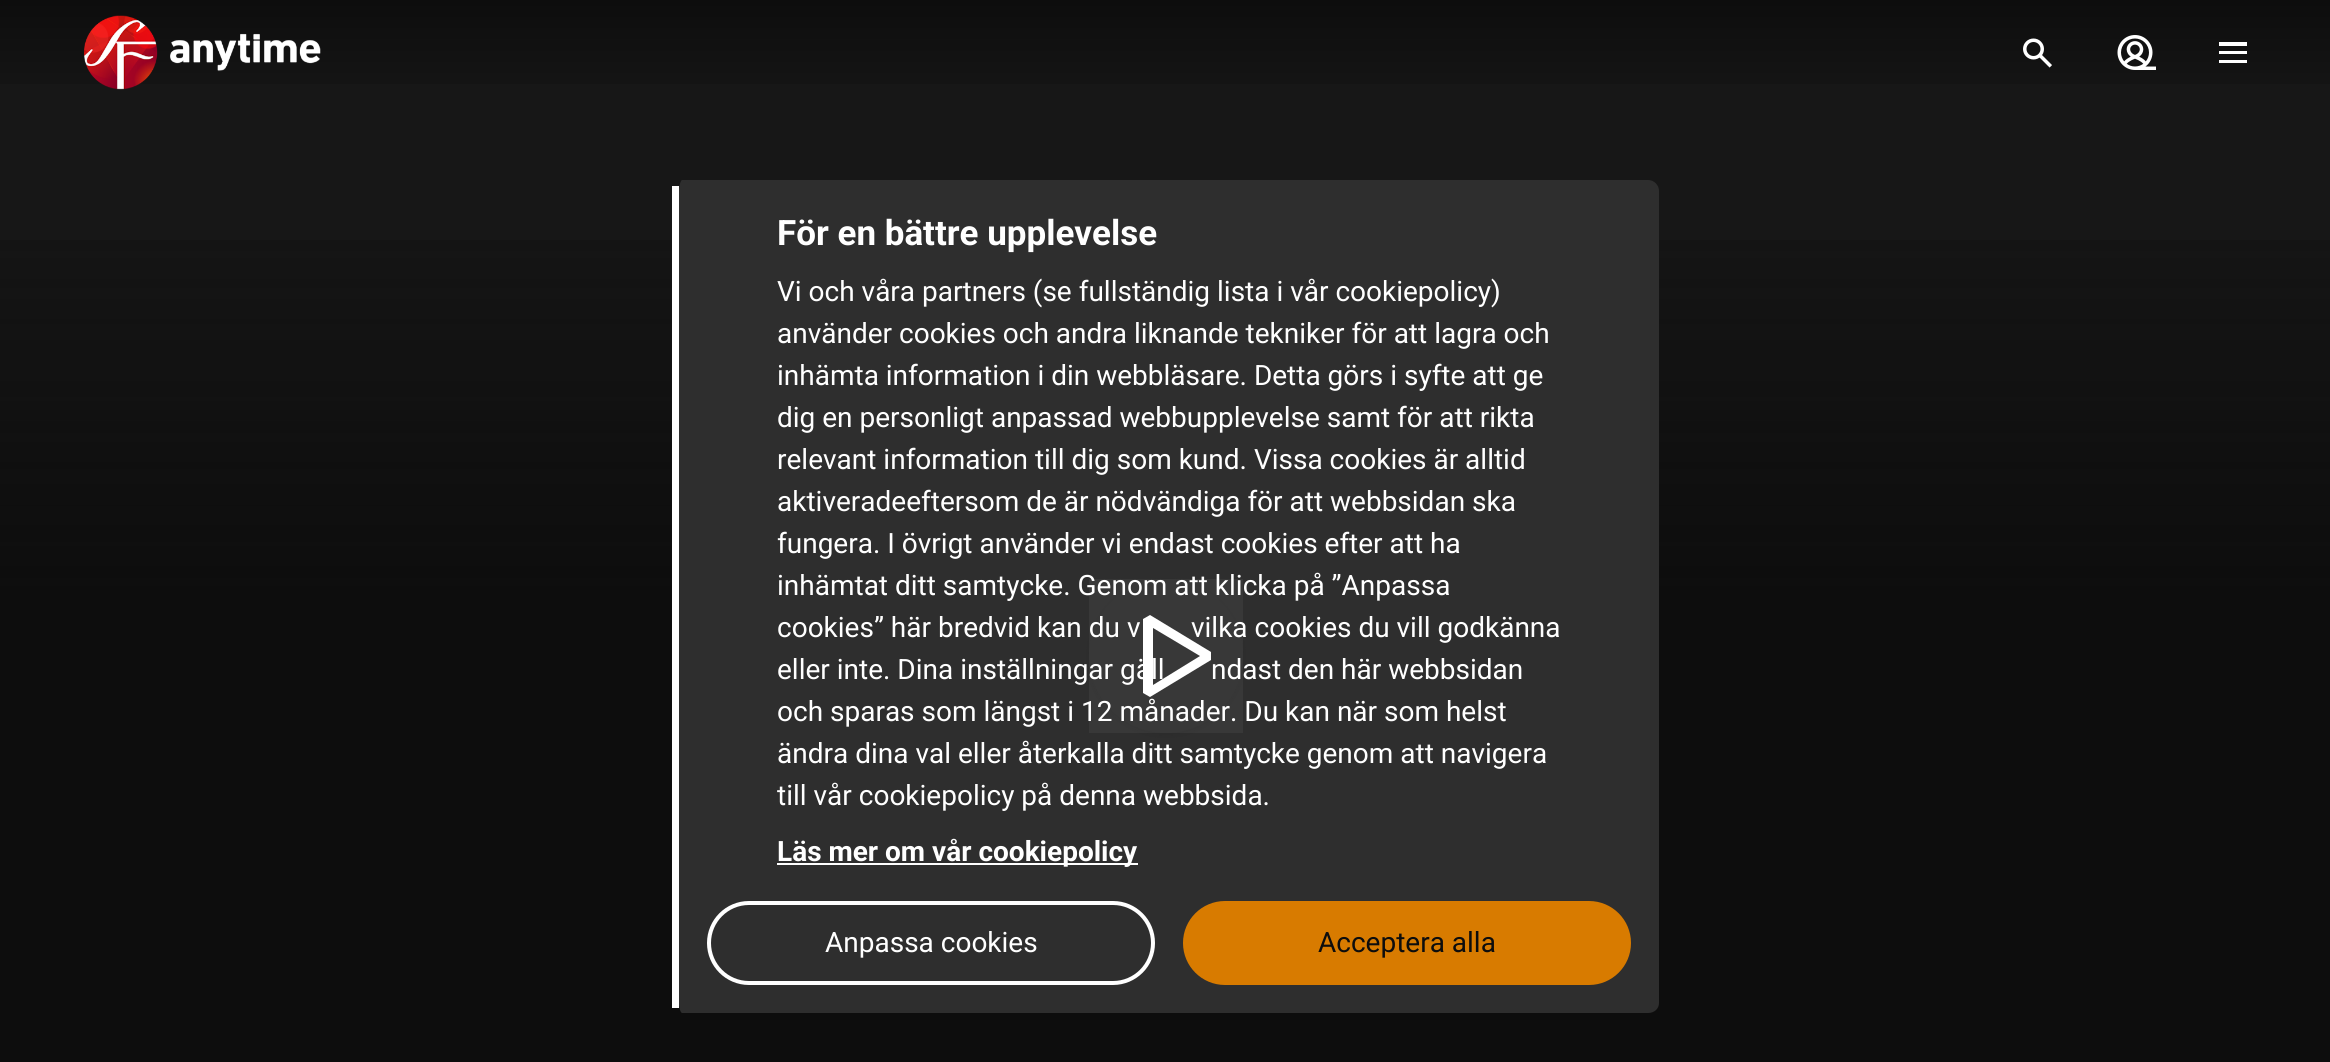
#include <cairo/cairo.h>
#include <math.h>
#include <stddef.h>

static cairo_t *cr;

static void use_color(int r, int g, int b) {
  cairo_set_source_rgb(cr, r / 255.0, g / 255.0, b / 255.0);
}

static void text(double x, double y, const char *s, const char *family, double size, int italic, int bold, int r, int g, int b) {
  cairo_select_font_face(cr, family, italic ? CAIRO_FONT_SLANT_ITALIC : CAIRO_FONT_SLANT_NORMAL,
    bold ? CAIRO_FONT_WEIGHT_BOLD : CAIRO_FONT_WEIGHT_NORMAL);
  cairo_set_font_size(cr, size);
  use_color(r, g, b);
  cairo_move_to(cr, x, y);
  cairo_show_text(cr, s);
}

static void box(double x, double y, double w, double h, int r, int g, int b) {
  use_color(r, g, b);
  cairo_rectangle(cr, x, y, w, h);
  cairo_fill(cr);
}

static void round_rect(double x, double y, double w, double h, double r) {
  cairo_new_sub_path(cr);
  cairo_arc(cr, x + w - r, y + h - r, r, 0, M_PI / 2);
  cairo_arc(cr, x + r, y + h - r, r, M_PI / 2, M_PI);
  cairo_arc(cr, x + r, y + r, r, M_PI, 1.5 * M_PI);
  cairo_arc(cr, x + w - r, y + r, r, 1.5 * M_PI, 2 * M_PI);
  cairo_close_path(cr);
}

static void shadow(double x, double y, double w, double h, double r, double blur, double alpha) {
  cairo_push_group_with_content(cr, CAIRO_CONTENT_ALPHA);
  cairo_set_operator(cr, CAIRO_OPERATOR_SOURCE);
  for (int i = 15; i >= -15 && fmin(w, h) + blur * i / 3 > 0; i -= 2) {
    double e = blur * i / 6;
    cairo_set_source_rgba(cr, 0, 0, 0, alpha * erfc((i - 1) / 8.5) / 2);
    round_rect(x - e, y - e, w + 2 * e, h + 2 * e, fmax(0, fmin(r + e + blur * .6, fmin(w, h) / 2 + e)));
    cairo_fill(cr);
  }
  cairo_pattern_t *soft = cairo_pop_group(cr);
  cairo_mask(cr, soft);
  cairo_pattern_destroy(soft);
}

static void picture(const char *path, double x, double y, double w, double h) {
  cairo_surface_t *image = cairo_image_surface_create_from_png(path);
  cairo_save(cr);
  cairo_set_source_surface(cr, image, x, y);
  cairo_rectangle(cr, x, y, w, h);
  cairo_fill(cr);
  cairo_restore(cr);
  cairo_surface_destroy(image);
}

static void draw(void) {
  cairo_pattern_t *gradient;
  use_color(23, 23, 23);
  cairo_paint(cr);
  gradient = cairo_pattern_create_linear(1166, 112, 1166, 0);
  cairo_pattern_add_color_stop_rgba(gradient, 0, 0.09, 0.09, 0.09, 1);
  cairo_pattern_add_color_stop_rgba(gradient, 1, 0.051, 0.051, 0.051, 1);
  cairo_set_source(cr, gradient);
  cairo_pattern_destroy(gradient);
  cairo_rectangle(cr, 0, 0, 2330, 84);
  cairo_fill(cr);
  picture("img_01.png", 84, 15, 237, 75);
  picture("img_02.png", 2023, 38, 29, 30);
  picture("img_03.png", 2117, 35, 39, 35);
  box(2219, 60, 28, 3, 255, 255, 255);
  box(2219, 42, 28, 4, 255, 255, 255);
  box(2219, 51, 28, 3, 255, 255, 255);
  gradient = cairo_pattern_create_linear(1166, 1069, 1166, 124);
  cairo_pattern_add_color_stop_rgba(gradient, 0, 0.051, 0.051, 0.051, 1);
  cairo_pattern_add_color_stop_rgba(gradient, 0.5, 0.051, 0.051, 0.051, 1);
  cairo_pattern_add_color_stop_rgba(gradient, 1, 0.051, 0.051, 0.051, 0);
  cairo_set_source(cr, gradient);
  cairo_pattern_destroy(gradient);
  cairo_rectangle(cr, 0, 240, 2330, 822);
  cairo_fill(cr);
  use_color(46, 46, 46);
  cairo_new_path(cr);
  cairo_move_to(cr, 682, 180);
  cairo_line_to(cr, 1648, 180);
  cairo_curve_to(cr, 1654, 180, 1659, 185, 1659, 191);
  cairo_line_to(cr, 1659, 1003);
  cairo_curve_to(cr, 1659, 1009, 1654, 1013, 1648, 1013);
  cairo_line_to(cr, 682, 1013);
  cairo_curve_to(cr, 681, 1013, 679, 1009, 679, 1003);
  cairo_line_to(cr, 679, 191);
  cairo_curve_to(cr, 679, 185, 681, 180, 682, 180);
  cairo_close_path(cr);
  cairo_fill(cr);
  box(672, 186, 7, 822, 255, 255, 255);
  box(777, 863, 361, 2, 255, 255, 255);
  round_rect(709, 903, 444, 80, 40);
  cairo_set_line_width(cr, 4);
  cairo_stroke(cr);
  use_color(216, 123, 0);
  round_rect(1185, 903, 444, 80, 40);
  cairo_fill_preserve(cr);
  cairo_stroke(cr);
  cairo_save(cr);
  cairo_set_fill_rule(cr, CAIRO_FILL_RULE_EVEN_ODD);
  cairo_new_path(cr);
  cairo_move_to(cr, 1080, 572);
  cairo_line_to(cr, 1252, 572);
  cairo_line_to(cr, 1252, 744);
  cairo_line_to(cr, 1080, 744);
  cairo_close_path(cr);
  cairo_move_to(cr, 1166, 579);
  cairo_curve_to(cr, 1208.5, 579, 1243, 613.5, 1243, 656);
  cairo_curve_to(cr, 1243, 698.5, 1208.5, 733, 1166, 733);
  cairo_curve_to(cr, 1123.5, 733, 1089, 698.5, 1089, 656);
  cairo_curve_to(cr, 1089, 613.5, 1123.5, 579, 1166, 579);
  cairo_close_path(cr);
  cairo_clip(cr);
  use_color(13, 13, 13);
  shadow(1089, 581, 154, 154, 77, 2.5, 0.1);
  cairo_restore(cr);
  cairo_set_source_rgba(cr, 1, 1, 1, 0.05);
  cairo_rectangle(cr, 1089, 579, 154, 154);
  cairo_fill(cr);
  use_color(255, 255, 255);
  cairo_new_path(cr);
  cairo_move_to(cr, 1150, 697);
  cairo_line_to(cr, 1143, 693);
  cairo_line_to(cr, 1143, 619);
  cairo_line_to(cr, 1150, 615);
  cairo_line_to(cr, 1211, 652);
  cairo_line_to(cr, 1211, 660);
  cairo_close_path(cr);
  cairo_move_to(cr, 1153, 628);
  cairo_line_to(cr, 1153, 685);
  cairo_line_to(cr, 1200, 656);
  cairo_close_path(cr);
  cairo_fill(cr);
  text(777, 245, "För en bättre upplevelse", "Roboto", 35, 0, 1, 255, 255, 255);
  text(777, 301, "Vi och våra partners (se fullständig lista i vår cookiepolicy)", "Roboto", 28, 0, 0, 255, 255, 255);
  text(777, 343, "använder cookies och andra liknande tekniker för att lagra och", "Roboto", 28, 0, 0, 255, 255, 255);
  text(777, 385, "inhämta information i din webbläsare. Detta görs i syfte att ge", "Roboto", 28, 0, 0, 255, 255, 255);
  text(777, 427, "dig en personligt anpassad webbupplevelse samt för att rikta", "Roboto", 28, 0, 0, 255, 255, 255);
  text(777, 469, "relevant information till dig som kund. Vissa cookies är alltid", "Roboto", 28, 0, 0, 255, 255, 255);
  text(777, 511, "aktiveradeeftersom de är nödvändiga för att webbsidan ska", "Roboto", 28, 0, 0, 255, 255, 255);
  text(777, 553, "fungera. I övrigt använder vi endast cookies efter att ha", "Roboto", 28, 0, 0, 255, 255, 255);
  text(777, 595, "inhämtat ditt samtycke. Genom att klicka på ”Anpassa", "Roboto", 28, 0, 0, 255, 255, 255);
  text(777, 637, "cookies” här bredvid kan du v", "Roboto", 28, 0, 0, 255, 255, 255);
  text(1191, 637, "vilka cookies du vill godkänna", "Roboto", 28, 0, 0, 255, 255, 255);
  text(777, 679, "eller inte. Dina inställningar gäll", "Roboto", 28, 0, 0, 255, 255, 255);
  text(1211, 679, "ndast den här webbsidan", "Roboto", 28, 0, 0, 255, 255, 255);
  text(777, 721, "och sparas som längst i 12 månader. Du kan när som helst", "Roboto", 28, 0, 0, 255, 255, 255);
  text(777, 763, "ändra dina val eller återkalla ditt samtycke genom att navigera", "Roboto", 28, 0, 0, 255, 255, 255);
  text(777, 805, "till vår cookiepolicy på denna webbsida.", "Roboto", 28, 0, 0, 255, 255, 255);
  text(777, 861, "Läs mer om vår cookiepolicy", "Roboto", 28, 0, 1, 255, 255, 255);
  text(825, 952, "Anpassa cookies", "Roboto", 28, 0, 0, 255, 255, 255);
  text(1318, 952, "Acceptera alla", "Roboto", 28, 0, 0, 13, 13, 13);
}

int main(void) {
  cairo_surface_t *surface = cairo_image_surface_create(CAIRO_FORMAT_RGB24, 2330, 1062);
  cr = cairo_create(surface);
  cairo_font_options_t *options = cairo_font_options_create();
  cairo_font_options_set_hint_metrics(options, CAIRO_HINT_METRICS_OFF);
  cairo_font_options_set_hint_style(options, CAIRO_HINT_STYLE_NONE);
  cairo_set_font_options(cr, options);
  cairo_set_miter_limit(cr, 4);
  draw();
  cairo_surface_write_to_png(surface, "out.png");
  cairo_font_options_destroy(options);
  cairo_destroy(cr);
  cairo_surface_destroy(surface);
  return 0;
}
